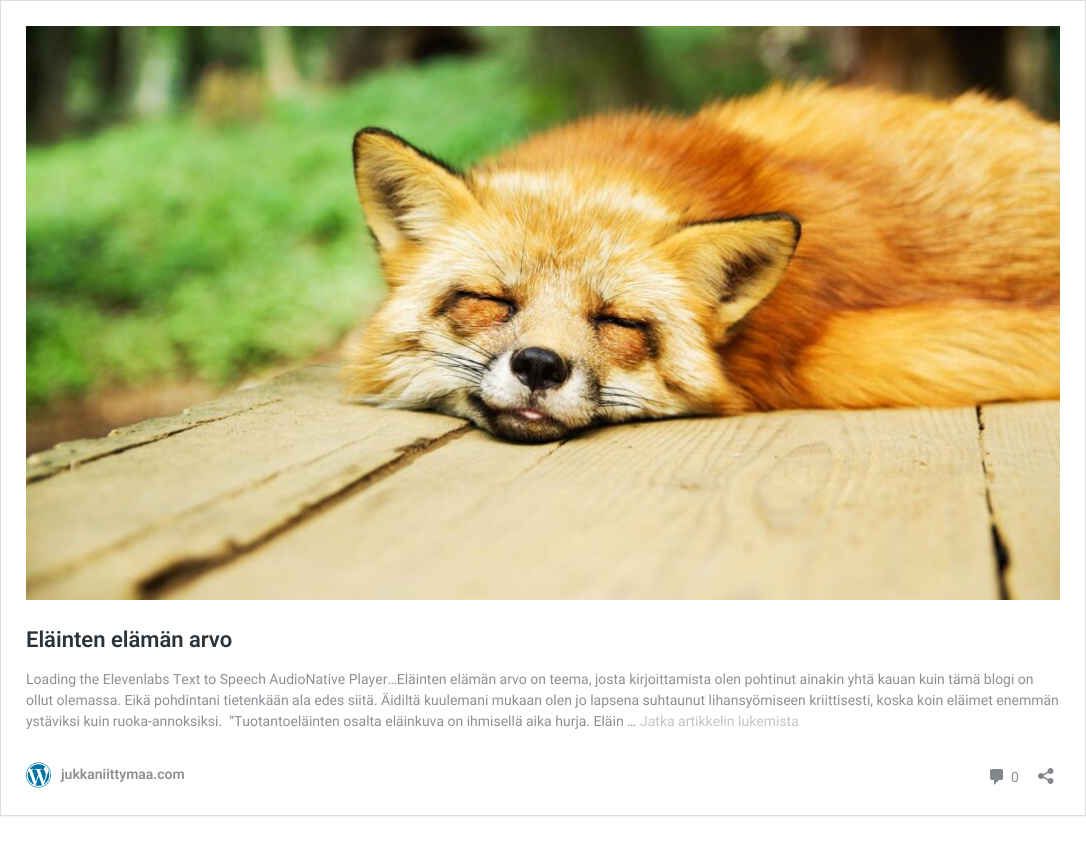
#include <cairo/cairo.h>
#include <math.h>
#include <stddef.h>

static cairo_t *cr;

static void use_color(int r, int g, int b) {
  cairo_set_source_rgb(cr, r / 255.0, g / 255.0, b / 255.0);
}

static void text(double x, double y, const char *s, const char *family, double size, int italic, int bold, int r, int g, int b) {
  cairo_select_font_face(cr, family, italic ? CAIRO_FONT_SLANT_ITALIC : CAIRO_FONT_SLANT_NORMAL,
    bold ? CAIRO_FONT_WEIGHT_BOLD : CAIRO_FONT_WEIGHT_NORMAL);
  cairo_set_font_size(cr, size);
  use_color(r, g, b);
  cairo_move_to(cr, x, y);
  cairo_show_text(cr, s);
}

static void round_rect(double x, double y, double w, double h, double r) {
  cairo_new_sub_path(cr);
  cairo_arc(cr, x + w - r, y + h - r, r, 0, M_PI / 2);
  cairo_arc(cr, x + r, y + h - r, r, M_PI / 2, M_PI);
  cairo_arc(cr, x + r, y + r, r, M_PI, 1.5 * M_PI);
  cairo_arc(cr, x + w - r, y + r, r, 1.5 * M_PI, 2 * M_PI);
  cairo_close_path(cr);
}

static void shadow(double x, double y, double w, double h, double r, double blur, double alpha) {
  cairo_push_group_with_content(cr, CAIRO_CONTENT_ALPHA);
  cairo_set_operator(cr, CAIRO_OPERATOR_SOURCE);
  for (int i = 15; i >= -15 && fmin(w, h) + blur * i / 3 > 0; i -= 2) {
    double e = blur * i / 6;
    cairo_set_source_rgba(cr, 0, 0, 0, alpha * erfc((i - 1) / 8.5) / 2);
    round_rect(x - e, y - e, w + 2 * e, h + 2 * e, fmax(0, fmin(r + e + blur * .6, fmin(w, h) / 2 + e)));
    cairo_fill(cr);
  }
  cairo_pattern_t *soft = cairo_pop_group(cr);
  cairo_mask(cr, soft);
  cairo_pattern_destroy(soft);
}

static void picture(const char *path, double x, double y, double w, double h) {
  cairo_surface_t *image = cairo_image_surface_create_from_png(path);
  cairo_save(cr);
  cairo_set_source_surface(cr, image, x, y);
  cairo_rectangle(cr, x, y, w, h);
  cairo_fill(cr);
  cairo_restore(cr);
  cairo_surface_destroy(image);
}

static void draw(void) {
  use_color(255, 255, 255);
  cairo_paint(cr);
  cairo_save(cr);
  cairo_rectangle(cr, 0, 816, 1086, 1);
  cairo_clip(cr);
  use_color(0, 0, 0);
  shadow(0, 1, 1086, 816, 0, 0.5, 0.05);
  cairo_restore(cr);
  cairo_rectangle(cr, 0.5, 0.5, 1085, 815);
  use_color(220, 220, 222);
  cairo_set_line_width(cr, 1);
  cairo_stroke(cr);
  picture("img_01.png", 26, 26, 1034, 574);
  picture("img_02.png", 26, 762, 25, 26);
  picture("img_03.png", 990, 769, 13, 16);
  picture("img_04.png", 1038, 768, 16, 16);
  text(26, 647, "Eläinten elämän arvo", "Roboto SemiBold", 22, 0, 0, 44, 51, 56);
  text(26, 684, "Loading the Elevenlabs Text to Speech AudioNative Player…Eläinten elämän arvo on teema, josta kirjoittamista olen pohtinut ainakin yhtä kauan kuin tämä blogi on", "Roboto", 14, 0, 0, 140, 143, 148);
  text(26, 705, "ollut olemassa. Eikä pohdintani tietenkään ala edes siitä. Äidiltä kuulemani mukaan olen jo lapsena suhtaunut lihansyömiseen kriittisesti, koska koin eläimet enemmän", "Roboto", 14, 0, 0, 140, 143, 148);
  text(26, 726, "ystäviksi kuin ruoka-annoksiksi.  “Tuotantoeläinten osalta eläinkuva on ihmisellä aika hurja. Eläin …", "Roboto", 14, 0, 0, 140, 143, 148);
  text(640, 726, "Jatka artikkelin lukemista", "Roboto", 14, 0, 0, 195, 196, 199);
  text(61, 779, "jukkaniittymaa.com", "Roboto SemiBold", 14, 0, 0, 140, 143, 148);
  text(1011, 782, "0", "Roboto", 14, 0, 0, 140, 143, 148);
}

int main(void) {
  cairo_surface_t *surface = cairo_image_surface_create(CAIRO_FORMAT_RGB24, 1086, 842);
  cr = cairo_create(surface);
  cairo_font_options_t *options = cairo_font_options_create();
  cairo_font_options_set_hint_metrics(options, CAIRO_HINT_METRICS_OFF);
  cairo_font_options_set_hint_style(options, CAIRO_HINT_STYLE_NONE);
  cairo_set_font_options(cr, options);
  cairo_set_miter_limit(cr, 4);
  draw();
  cairo_surface_write_to_png(surface, "out.png");
  cairo_font_options_destroy(options);
  cairo_destroy(cr);
  cairo_surface_destroy(surface);
  return 0;
}
